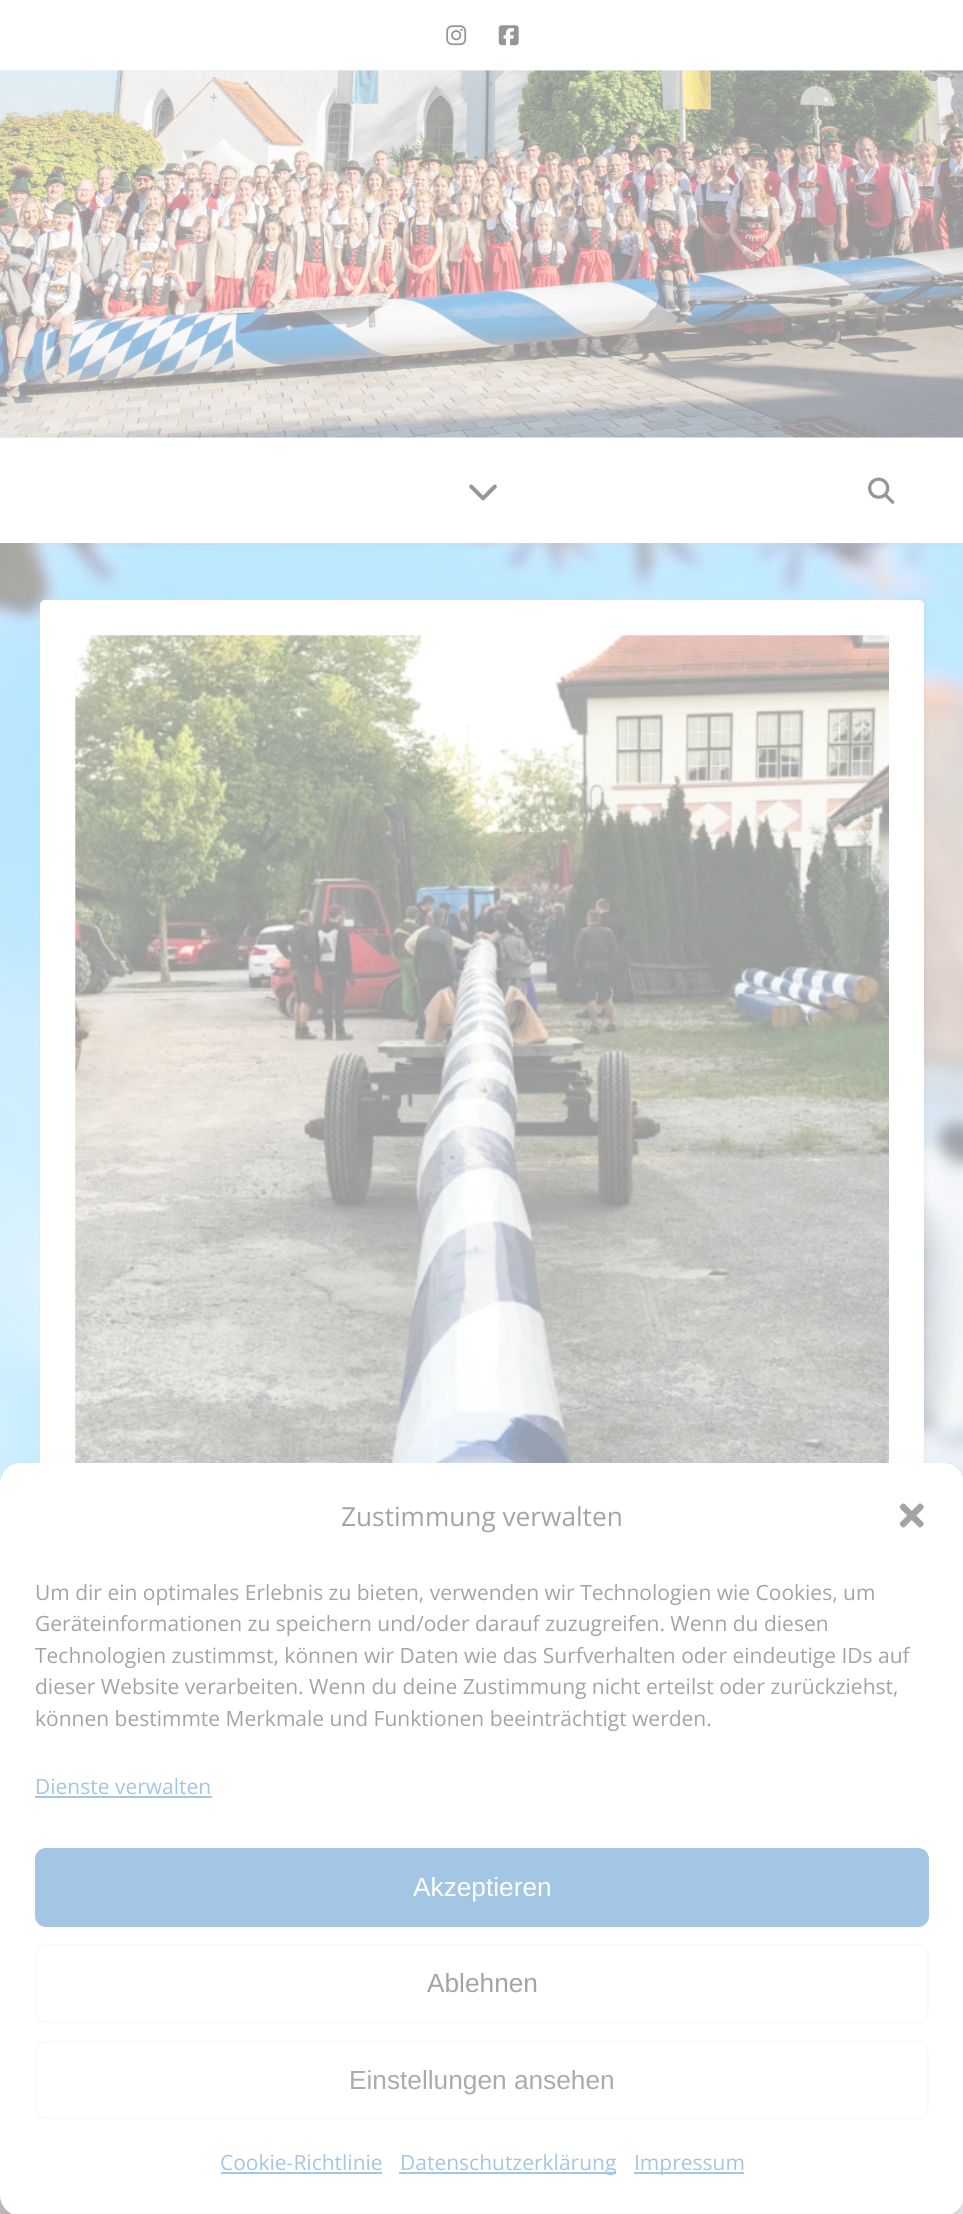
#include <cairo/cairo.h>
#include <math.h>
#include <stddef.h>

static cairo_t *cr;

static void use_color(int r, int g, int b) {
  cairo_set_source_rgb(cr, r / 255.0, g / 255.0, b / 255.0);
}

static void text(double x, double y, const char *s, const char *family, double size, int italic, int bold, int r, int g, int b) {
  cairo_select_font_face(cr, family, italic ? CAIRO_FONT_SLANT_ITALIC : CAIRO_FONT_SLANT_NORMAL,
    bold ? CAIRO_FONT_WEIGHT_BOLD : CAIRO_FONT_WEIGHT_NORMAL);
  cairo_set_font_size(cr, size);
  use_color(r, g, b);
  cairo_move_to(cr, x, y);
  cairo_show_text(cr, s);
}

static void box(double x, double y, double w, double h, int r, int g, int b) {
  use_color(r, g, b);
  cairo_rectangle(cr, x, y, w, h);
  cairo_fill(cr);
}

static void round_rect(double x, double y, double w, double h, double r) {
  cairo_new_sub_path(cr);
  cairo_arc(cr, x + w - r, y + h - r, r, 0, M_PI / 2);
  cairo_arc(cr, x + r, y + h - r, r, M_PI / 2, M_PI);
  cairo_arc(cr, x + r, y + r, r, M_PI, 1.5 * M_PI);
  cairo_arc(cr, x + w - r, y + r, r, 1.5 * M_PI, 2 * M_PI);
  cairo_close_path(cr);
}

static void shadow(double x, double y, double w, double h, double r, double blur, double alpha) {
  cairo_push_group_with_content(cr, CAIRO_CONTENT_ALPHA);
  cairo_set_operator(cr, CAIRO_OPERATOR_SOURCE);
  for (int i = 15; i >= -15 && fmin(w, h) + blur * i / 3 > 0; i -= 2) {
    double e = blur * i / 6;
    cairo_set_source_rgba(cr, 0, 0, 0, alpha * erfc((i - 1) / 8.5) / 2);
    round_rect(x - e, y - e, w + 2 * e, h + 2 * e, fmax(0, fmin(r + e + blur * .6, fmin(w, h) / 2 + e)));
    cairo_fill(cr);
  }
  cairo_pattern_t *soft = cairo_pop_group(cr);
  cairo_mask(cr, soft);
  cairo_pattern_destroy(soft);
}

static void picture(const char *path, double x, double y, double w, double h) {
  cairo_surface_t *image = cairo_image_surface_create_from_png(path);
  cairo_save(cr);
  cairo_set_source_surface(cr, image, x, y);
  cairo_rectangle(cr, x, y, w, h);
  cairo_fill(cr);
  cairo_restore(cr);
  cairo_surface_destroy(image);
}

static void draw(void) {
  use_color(255, 255, 255);
  cairo_paint(cr);
  picture("img_01.png", 0, 543, 963, 1671);
  picture("img_02.png", 446, 25, 21, 21);
  picture("img_03.png", 498, 25, 21, 21);
  picture("img_04.png", 0, 70, 963, 368);
  use_color(150, 150, 150);
  shadow(0, 439, 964, 105, 0, 4.5, 0.1);
  box(0, 438, 963, 105, 255, 255, 255);
  picture("img_05.png", 469, 484, 28, 17);
  picture("img_06.png", 868, 477, 27, 27);
  use_color(150, 150, 150);
  shadow(42, 602, 884, 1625, 5, 2.5, 0.1);
  use_color(255, 255, 255);
  round_rect(40, 600, 884, 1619, 5);
  cairo_fill(cr);
  picture("img_07.png", 75, 635, 814, 828);
  use_color(150, 150, 150);
  shadow(0, 1474, 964, 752, 21, 5, 0.23);
  shadow(0, 1481, 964, 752, 21, 17.5, 0.19);
  use_color(255, 255, 255);
  round_rect(0, 1463, 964, 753, 21);
  cairo_fill(cr);
  picture("img_08.png", 899, 1503, 25, 25);
  box(35, 1796, 177, 2, 163, 198, 228);
  round_rect(36, 1849, 892, 77, 10);
  cairo_fill_preserve(cr);
  cairo_stroke(cr);
  round_rect(36, 1945, 892, 77, 10);
  use_color(250, 250, 250);
  cairo_stroke(cr);
  round_rect(36, 2042, 892, 76, 10);
  cairo_stroke(cr);
  box(221, 2172, 161, 2, 163, 198, 228);
  box(399, 2172, 217, 2, 163, 198, 228);
  box(634, 2172, 110, 2, 163, 198, 228);
  text(341, 1526, "Zustimmung verwalten", "Open Sans", 26.25, 0, 0, 164, 164, 164);
  text(35, 1600, "Um dir ein optimales Erlebnis zu bieten, verwenden wir Technologien wie Cookies, um", "Open Sans", 21, 0, 0, 164, 164, 164);
  text(35, 1631, "Geräteinformationen zu speichern und/oder darauf zuzugreifen. Wenn du diesen", "Open Sans", 21, 0, 0, 164, 164, 164);
  text(35, 1663, "Technologien zustimmst, können wir Daten wie das Surfverhalten oder eindeutige IDs auf", "Open Sans", 21, 0, 0, 164, 164, 164);
  text(35, 1694, "dieser Website verarbeiten. Wenn du deine Zustimmung nicht erteilst oder zurückziehst,", "Open Sans", 21, 0, 0, 164, 164, 164);
  text(35, 1726, "können bestimmte Merkmale und Funktionen beeinträchtigt werden.", "Open Sans", 21, 0, 0, 164, 164, 164);
  text(35, 1794, "Dienste verwalten", "Open Sans", 21, 0, 0, 163, 198, 228);
  text(413, 1896, "Akzeptieren", "Liberation Sans", 26.25, 0, 0, 255, 255, 255);
  text(427, 1992, "Ablehnen", "Liberation Sans", 26.25, 0, 0, 164, 164, 164);
  text(349, 2089, "Einstellungen ansehen", "Liberation Sans", 26.25, 0, 0, 171, 171, 171);
  text(220, 2170, "Cookie-Richtlinie", "Open Sans", 21, 0, 0, 163, 198, 228);
  text(400, 2170, "Datenschutzerklärung", "Open Sans", 21, 0, 0, 163, 198, 228);
  text(634, 2170, "Impressum", "Open Sans", 21, 0, 0, 163, 198, 228);
}

int main(void) {
  cairo_surface_t *surface = cairo_image_surface_create(CAIRO_FORMAT_RGB24, 963, 2214);
  cr = cairo_create(surface);
  cairo_font_options_t *options = cairo_font_options_create();
  cairo_font_options_set_hint_metrics(options, CAIRO_HINT_METRICS_OFF);
  cairo_font_options_set_hint_style(options, CAIRO_HINT_STYLE_NONE);
  cairo_set_font_options(cr, options);
  cairo_set_miter_limit(cr, 4);
  draw();
  cairo_surface_write_to_png(surface, "out.png");
  cairo_font_options_destroy(options);
  cairo_destroy(cr);
  cairo_surface_destroy(surface);
  return 0;
}
